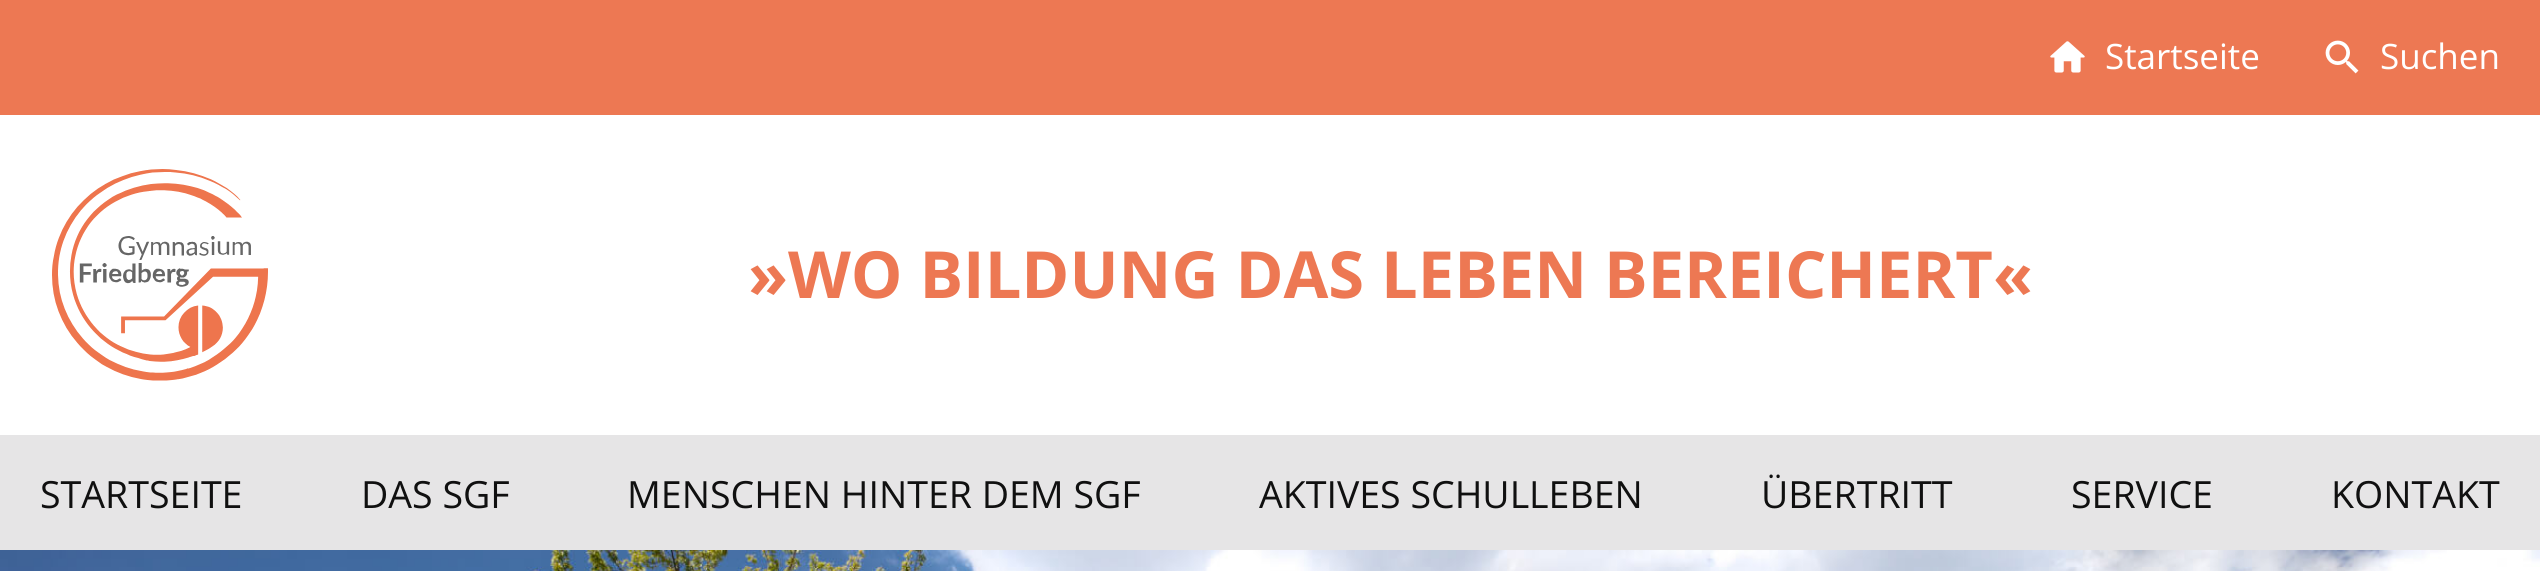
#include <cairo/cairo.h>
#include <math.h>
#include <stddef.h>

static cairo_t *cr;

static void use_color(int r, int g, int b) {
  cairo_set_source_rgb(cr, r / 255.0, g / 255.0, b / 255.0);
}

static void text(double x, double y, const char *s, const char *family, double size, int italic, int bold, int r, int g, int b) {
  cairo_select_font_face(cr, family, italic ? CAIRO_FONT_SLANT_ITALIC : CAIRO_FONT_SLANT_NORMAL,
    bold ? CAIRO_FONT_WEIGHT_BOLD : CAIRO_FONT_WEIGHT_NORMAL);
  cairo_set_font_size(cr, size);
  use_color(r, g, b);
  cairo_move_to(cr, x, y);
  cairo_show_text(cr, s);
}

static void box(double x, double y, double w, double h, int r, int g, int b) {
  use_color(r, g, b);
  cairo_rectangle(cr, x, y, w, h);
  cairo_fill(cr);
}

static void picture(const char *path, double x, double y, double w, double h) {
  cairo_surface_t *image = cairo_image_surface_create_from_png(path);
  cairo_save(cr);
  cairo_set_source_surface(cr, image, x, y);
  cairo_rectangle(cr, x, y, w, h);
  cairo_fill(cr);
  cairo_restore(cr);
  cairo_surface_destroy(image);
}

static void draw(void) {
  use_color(255, 255, 255);
  cairo_paint(cr);
  box(0, 0, 2540, 115, 237, 120, 83);
  picture("img_01.png", 2050, 41, 35, 32);
  picture("img_02.png", 2325, 40, 34, 34);
  picture("img_03.png", 52, 169, 216, 212);
  box(0, 435, 2540, 115, 230, 229, 230);
  picture("img_04.png", 0, 550, 2540, 21);
  text(2105, 69, "Startseite", "Open Sans", 35, 0, 0, 255, 255, 255);
  text(2380, 69, "Suchen", "Open Sans", 35, 0, 0, 255, 255, 255);
  text(748, 298, "»WO BILDUNG DAS LEBEN BEREICHERT«", "Open Sans", 65, 0, 1, 237, 120, 83);
  text(40, 508, "STARTSEITE", "Open Sans", 37.5, 0, 0, 16, 16, 16);
  text(361, 508, "DAS SGF", "Open Sans", 37.5, 0, 0, 16, 16, 16);
  text(627, 508, "MENSCHEN HINTER DEM SGF", "Open Sans", 37.5, 0, 0, 16, 16, 16);
  text(1259, 508, "AKTIVES SCHULLEBEN", "Open Sans", 37.5, 0, 0, 16, 16, 16);
  text(1761, 508, "ÜBERTRITT", "Open Sans", 37.5, 0, 0, 16, 16, 16);
  text(2071, 508, "SERVICE", "Open Sans", 37.5, 0, 0, 16, 16, 16);
  text(2331, 508, "KONTAKT", "Open Sans", 37.5, 0, 0, 16, 16, 16);
}

int main(void) {
  cairo_surface_t *surface = cairo_image_surface_create(CAIRO_FORMAT_RGB24, 2540, 571);
  cr = cairo_create(surface);
  cairo_font_options_t *options = cairo_font_options_create();
  cairo_font_options_set_hint_metrics(options, CAIRO_HINT_METRICS_OFF);
  cairo_font_options_set_hint_style(options, CAIRO_HINT_STYLE_NONE);
  cairo_set_font_options(cr, options);
  cairo_set_miter_limit(cr, 4);
  draw();
  cairo_surface_write_to_png(surface, "out.png");
  cairo_font_options_destroy(options);
  cairo_destroy(cr);
  cairo_surface_destroy(surface);
  return 0;
}
